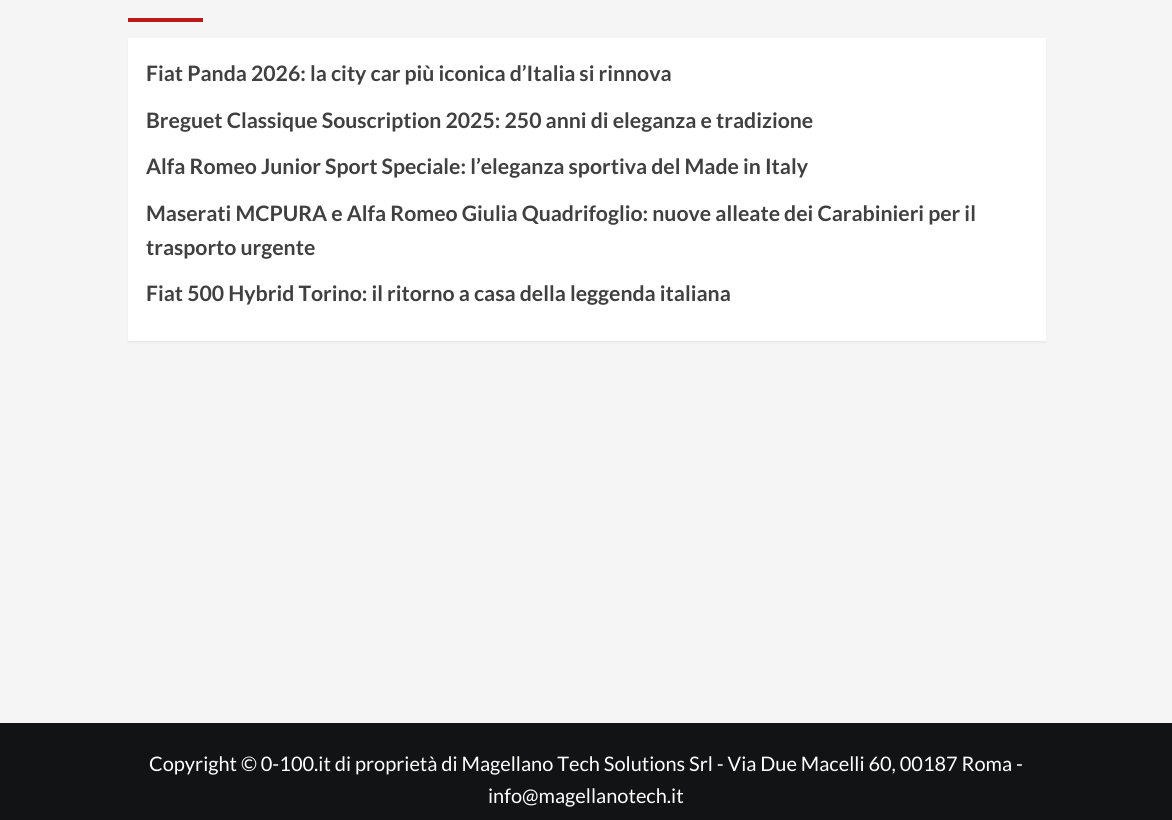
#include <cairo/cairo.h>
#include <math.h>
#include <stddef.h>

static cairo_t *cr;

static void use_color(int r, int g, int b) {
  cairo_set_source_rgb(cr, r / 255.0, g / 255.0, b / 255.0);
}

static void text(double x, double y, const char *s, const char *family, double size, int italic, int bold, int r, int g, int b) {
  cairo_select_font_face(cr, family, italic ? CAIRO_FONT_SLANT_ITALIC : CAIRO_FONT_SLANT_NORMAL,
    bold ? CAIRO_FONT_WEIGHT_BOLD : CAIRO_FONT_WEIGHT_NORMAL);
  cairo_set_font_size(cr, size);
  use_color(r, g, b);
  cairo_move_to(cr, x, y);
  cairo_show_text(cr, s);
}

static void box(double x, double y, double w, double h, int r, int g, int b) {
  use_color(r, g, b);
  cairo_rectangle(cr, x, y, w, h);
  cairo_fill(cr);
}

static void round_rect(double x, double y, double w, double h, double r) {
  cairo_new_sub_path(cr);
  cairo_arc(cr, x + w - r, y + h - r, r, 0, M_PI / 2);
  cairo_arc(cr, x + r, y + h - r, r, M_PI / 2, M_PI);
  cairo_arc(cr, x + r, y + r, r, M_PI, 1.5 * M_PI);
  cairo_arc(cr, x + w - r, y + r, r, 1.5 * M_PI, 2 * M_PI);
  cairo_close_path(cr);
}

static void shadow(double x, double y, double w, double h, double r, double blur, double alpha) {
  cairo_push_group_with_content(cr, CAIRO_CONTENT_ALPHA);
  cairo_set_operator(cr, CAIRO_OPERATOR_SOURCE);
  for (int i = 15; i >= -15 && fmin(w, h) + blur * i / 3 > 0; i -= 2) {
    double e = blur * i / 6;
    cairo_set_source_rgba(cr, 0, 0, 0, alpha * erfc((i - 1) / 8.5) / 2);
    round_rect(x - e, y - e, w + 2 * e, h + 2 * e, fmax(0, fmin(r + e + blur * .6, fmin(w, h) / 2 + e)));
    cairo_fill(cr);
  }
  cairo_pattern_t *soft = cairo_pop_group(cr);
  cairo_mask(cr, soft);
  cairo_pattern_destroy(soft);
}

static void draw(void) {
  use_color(245, 245, 245);
  cairo_paint(cr);
  box(128, 18, 75, 4, 187, 25, 25);
  use_color(0, 0, 0);
  shadow(128, 39, 918, 304, 0, 1, 0.05);
  box(128, 38, 918, 303, 255, 255, 255);
  box(0, 723, 1172, 97, 18, 19, 20);
  text(146, 81, "Fiat Panda 2026: la city car più iconica d’Italia si rinnova", "Lato", 21.25, 0, 1, 64, 64, 64);
  text(146, 128, "Breguet Classique Souscription 2025: 250 anni di eleganza e tradizione", "Lato", 21.25, 0, 1, 64, 64, 64);
  text(146, 174, "Alfa Romeo Junior Sport Speciale: l’eleganza sportiva del Made in Italy", "Lato", 21.25, 0, 1, 64, 64, 64);
  text(146, 221, "Maserati MCPURA e Alfa Romeo Giulia Quadrifoglio: nuove alleate dei Carabinieri per il", "Lato", 21.25, 0, 1, 64, 64, 64);
  text(146, 255, "trasporto urgente", "Lato", 21.25, 0, 1, 64, 64, 64);
  text(146, 301, "Fiat 500 Hybrid Torino: il ritorno a casa della leggenda italiana", "Lato", 21.25, 0, 1, 64, 64, 64);
  text(149, 771, "Copyright © 0-100.it di proprietà di Magellano Tech Solutions Srl - Via Due Macelli 60, 00187 Roma -", "Lato", 20, 0, 0, 255, 255, 255);
  text(488, 803, "info@magellanotech.it", "Lato", 20, 0, 0, 255, 255, 255);
}

int main(void) {
  cairo_surface_t *surface = cairo_image_surface_create(CAIRO_FORMAT_RGB24, 1172, 820);
  cr = cairo_create(surface);
  cairo_font_options_t *options = cairo_font_options_create();
  cairo_font_options_set_hint_metrics(options, CAIRO_HINT_METRICS_OFF);
  cairo_font_options_set_hint_style(options, CAIRO_HINT_STYLE_NONE);
  cairo_set_font_options(cr, options);
  cairo_set_miter_limit(cr, 4);
  draw();
  cairo_surface_write_to_png(surface, "out.png");
  cairo_font_options_destroy(options);
  cairo_destroy(cr);
  cairo_surface_destroy(surface);
  return 0;
}
